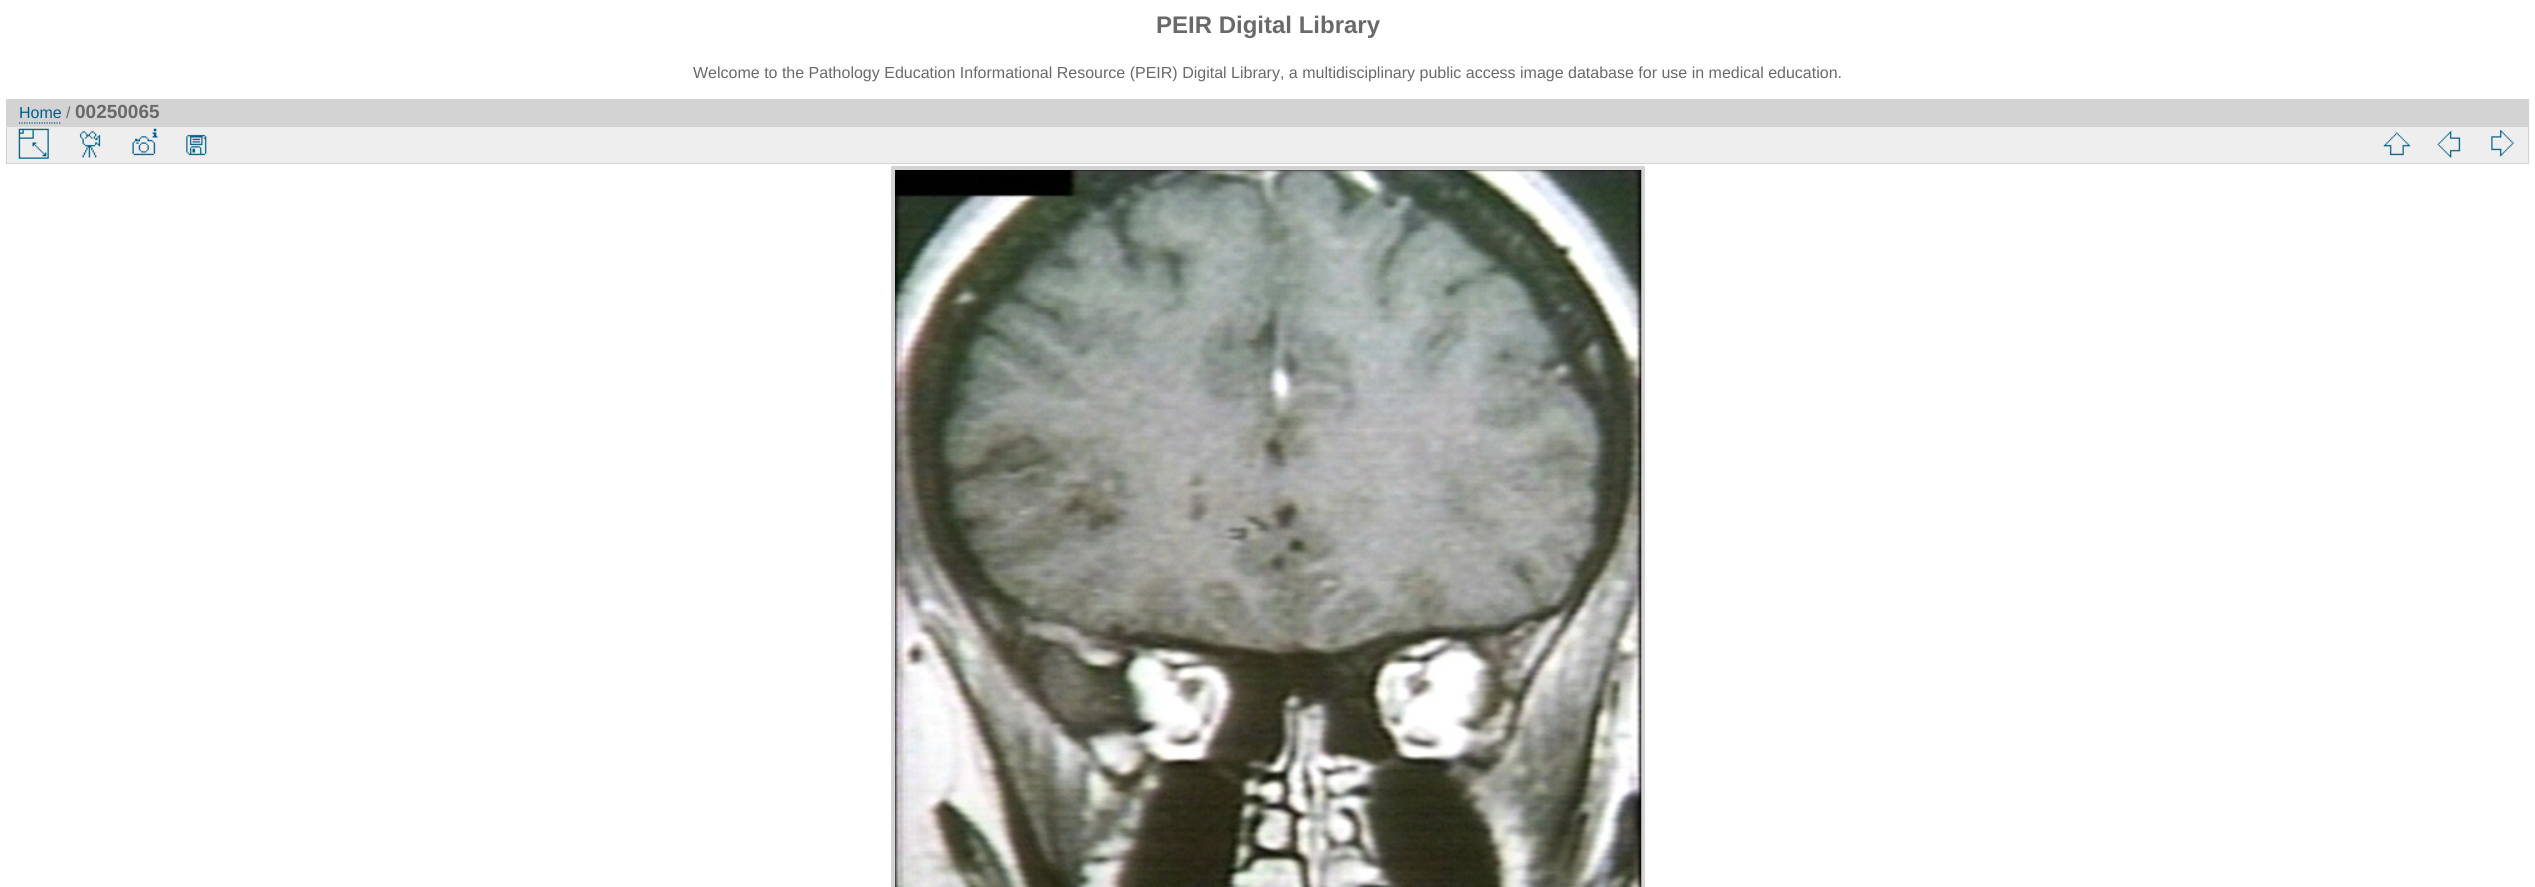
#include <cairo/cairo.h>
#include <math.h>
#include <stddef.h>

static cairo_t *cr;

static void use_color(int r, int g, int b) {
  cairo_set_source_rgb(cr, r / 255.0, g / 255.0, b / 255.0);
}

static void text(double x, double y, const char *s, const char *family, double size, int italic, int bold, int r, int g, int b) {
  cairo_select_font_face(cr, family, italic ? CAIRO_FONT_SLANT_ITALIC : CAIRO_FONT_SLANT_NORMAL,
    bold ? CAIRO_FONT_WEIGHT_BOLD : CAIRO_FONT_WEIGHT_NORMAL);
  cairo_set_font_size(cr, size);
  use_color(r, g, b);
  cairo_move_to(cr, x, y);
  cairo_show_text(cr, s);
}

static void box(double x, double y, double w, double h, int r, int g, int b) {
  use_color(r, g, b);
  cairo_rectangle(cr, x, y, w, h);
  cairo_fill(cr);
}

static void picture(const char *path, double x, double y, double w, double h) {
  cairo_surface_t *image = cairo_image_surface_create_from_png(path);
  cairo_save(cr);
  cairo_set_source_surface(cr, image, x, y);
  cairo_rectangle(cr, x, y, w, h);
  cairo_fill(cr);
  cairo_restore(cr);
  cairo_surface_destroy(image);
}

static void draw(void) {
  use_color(255, 255, 255);
  cairo_paint(cr);
  box(6, 99, 2523, 27, 211, 211, 211);
  cairo_new_path(cr);
  cairo_move_to(cr, 19, 123);
  cairo_line_to(cr, 61, 123);
  use_color(0, 94, 137);
  cairo_set_line_width(cr, 1.2);
  cairo_set_dash(cr, (double[]){1.25, 1.25}, 2, 0);
  cairo_stroke(cr);
  use_color(238, 238, 238);
  cairo_rectangle(cr, 6.5, 126.5, 2522, 37);
  cairo_fill_preserve(cr);
  use_color(211, 211, 211);
  cairo_set_line_width(cr, 1);
  cairo_set_dash(cr, NULL, 0, 0);
  cairo_stroke(cr);
  picture("img_01.png", 18, 128, 31, 31);
  picture("img_02.png", 79, 131, 22, 27);
  picture("img_03.png", 132, 128, 26, 28);
  picture("img_04.png", 186, 134, 21, 22);
  picture("img_05.png", 2383, 132, 28, 24);
  picture("img_06.png", 2437, 131, 24, 27);
  picture("img_07.png", 2491, 129, 23, 28);
  cairo_rectangle(cr, 893, 168, 750, 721);
  cairo_set_line_width(cr, 4);
  cairo_stroke(cr);
  picture("img_08.png", 895, 170, 747, 717);
  text(1156, 33, "PEIR Digital Library", "Liberation Sans", 24, 0, 1, 105, 105, 105);
  text(693, 78, "Welcome to the Pathology Education Informational Resource (PEIR) Digital Library, a multidisciplinary public access image database for use in medical education.", "Liberation Sans", 16, 0, 0, 105, 105, 105);
  text(19, 118, "Home", "Liberation Sans", 16, 0, 0, 0, 94, 137);
  text(66, 118, "/", "Liberation Sans", 16, 0, 0, 105, 105, 105);
  text(75, 118, "00250065", "Liberation Sans", 19, 0, 1, 105, 105, 105);
}

int main(void) {
  cairo_surface_t *surface = cairo_image_surface_create(CAIRO_FORMAT_RGB24, 2535, 887);
  cr = cairo_create(surface);
  cairo_font_options_t *options = cairo_font_options_create();
  cairo_font_options_set_hint_metrics(options, CAIRO_HINT_METRICS_OFF);
  cairo_font_options_set_hint_style(options, CAIRO_HINT_STYLE_NONE);
  cairo_set_font_options(cr, options);
  cairo_set_miter_limit(cr, 4);
  draw();
  cairo_surface_write_to_png(surface, "out.png");
  cairo_font_options_destroy(options);
  cairo_destroy(cr);
  cairo_surface_destroy(surface);
  return 0;
}
